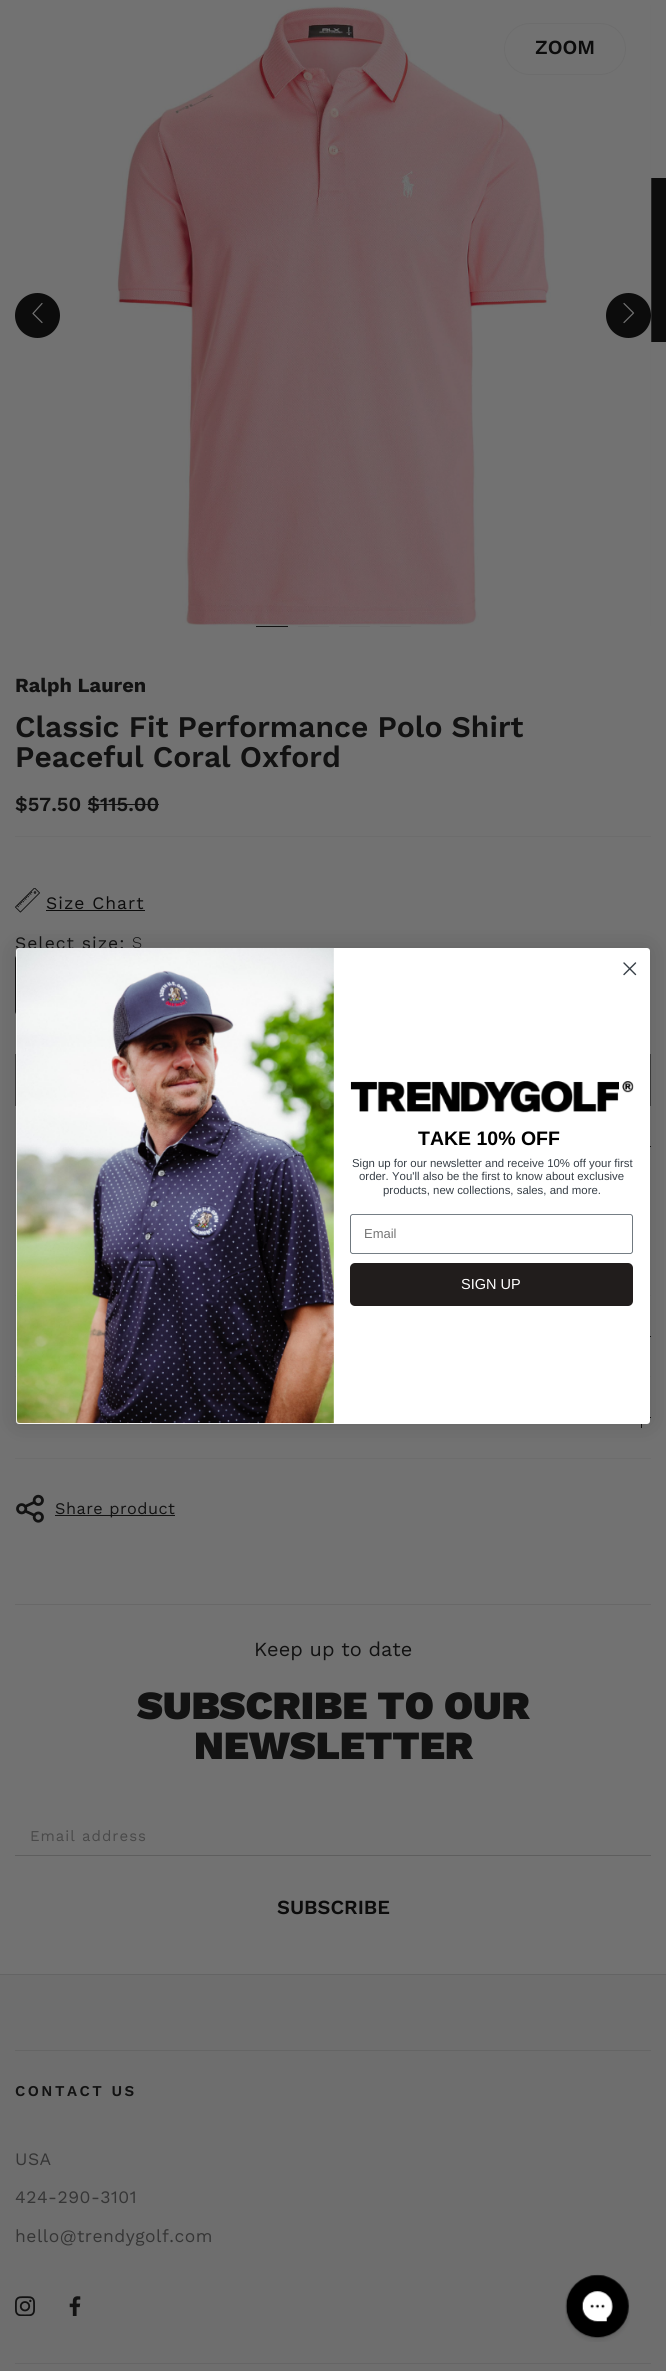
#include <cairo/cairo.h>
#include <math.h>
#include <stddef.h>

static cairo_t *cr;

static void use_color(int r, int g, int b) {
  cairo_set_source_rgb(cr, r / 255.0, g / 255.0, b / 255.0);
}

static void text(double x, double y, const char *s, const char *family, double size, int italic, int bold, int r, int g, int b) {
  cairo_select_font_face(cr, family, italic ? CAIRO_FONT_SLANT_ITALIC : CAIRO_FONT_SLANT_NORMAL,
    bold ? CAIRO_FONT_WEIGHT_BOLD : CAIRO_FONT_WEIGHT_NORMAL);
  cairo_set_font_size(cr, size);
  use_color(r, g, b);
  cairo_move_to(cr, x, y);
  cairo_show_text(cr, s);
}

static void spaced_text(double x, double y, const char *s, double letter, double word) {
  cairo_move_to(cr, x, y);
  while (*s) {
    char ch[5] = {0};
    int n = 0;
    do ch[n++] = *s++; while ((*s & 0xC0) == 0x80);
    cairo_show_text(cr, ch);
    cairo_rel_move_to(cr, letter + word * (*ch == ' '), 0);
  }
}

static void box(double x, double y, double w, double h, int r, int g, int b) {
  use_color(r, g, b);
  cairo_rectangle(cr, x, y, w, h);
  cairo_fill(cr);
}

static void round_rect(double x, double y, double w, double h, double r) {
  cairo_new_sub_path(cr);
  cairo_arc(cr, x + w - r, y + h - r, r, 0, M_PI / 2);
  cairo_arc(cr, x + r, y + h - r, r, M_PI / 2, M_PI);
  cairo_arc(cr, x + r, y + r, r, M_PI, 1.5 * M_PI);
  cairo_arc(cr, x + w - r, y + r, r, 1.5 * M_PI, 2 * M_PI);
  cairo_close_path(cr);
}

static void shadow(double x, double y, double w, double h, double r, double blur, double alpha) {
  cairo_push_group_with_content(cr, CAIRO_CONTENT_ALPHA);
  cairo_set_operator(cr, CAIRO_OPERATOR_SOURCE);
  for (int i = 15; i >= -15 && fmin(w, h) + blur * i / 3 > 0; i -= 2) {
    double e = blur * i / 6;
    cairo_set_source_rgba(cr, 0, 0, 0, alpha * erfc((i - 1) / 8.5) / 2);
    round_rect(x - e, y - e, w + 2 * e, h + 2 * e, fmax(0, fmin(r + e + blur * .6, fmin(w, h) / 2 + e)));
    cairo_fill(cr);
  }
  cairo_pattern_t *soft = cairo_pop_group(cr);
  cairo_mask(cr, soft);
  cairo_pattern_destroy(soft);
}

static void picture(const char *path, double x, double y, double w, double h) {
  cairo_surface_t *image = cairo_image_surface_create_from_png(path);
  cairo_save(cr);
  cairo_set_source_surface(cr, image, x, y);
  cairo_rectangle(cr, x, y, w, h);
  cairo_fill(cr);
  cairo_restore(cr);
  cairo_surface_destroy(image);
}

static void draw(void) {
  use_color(114, 114, 114);
  cairo_paint(cr);
  use_color(12, 12, 12);
  cairo_new_path(cr);
  cairo_move_to(cr, 613, 335);
  cairo_line_to(cr, 613, 184);
  cairo_curve_to(cr, 613, 181, 616, 178, 619, 178);
  cairo_line_to(cr, 666, 178);
  cairo_line_to(cr, 666, 342);
  cairo_line_to(cr, 619, 342);
  cairo_curve_to(cr, 616, 342, 613, 339, 613, 335);
  cairo_close_path(cr);
  cairo_fill(cr);
  picture("img_01.png", 116, 5, 536, 621);
  round_rect(504.5, 23.5, 121, 51, 25.5);
  use_color(109, 109, 109);
  cairo_set_line_width(cr, 1);
  cairo_stroke(cr);
  use_color(12, 12, 12);
  cairo_arc(cr, 37.5, 315.5, 22.5, 0, 2 * M_PI);
  cairo_fill(cr);
  cairo_new_path(cr);
  cairo_move_to(cr, 33, 313.5);
  cairo_line_to(cr, 42, 322.5);
  cairo_move_to(cr, 42, 303.5);
  cairo_line_to(cr, 33, 313.5);
  use_color(114, 114, 114);
  cairo_set_line_width(cr, 1.2);
  cairo_set_line_cap(cr, CAIRO_LINE_CAP_ROUND);
  cairo_set_line_join(cr, CAIRO_LINE_JOIN_ROUND);
  cairo_stroke(cr);
  use_color(12, 12, 12);
  cairo_arc(cr, 628.5, 315.5, 22.5, 0, 2 * M_PI);
  cairo_fill(cr);
  cairo_new_path(cr);
  cairo_move_to(cr, 633.5, 313);
  cairo_line_to(cr, 624, 303.5);
  cairo_move_to(cr, 624, 322.5);
  cairo_line_to(cr, 633.5, 313);
  use_color(114, 114, 114);
  cairo_stroke(cr);
  box(256, 626, 32, 1, 18, 18, 18);
  box(298, 626, 31, 1, 109, 109, 109);
  box(339, 626, 31, 1, 109, 109, 109);
  box(380, 626, 31, 1, 109, 109, 109);
  box(15, 836, 636, 1, 109, 109, 109);
  box(88, 804, 71, 1, 18, 18, 18);
  picture("img_02.png", 15, 888, 25, 25);
  box(46, 910, 99, 1, 12, 12, 12);
  round_rect(15.5, 954.5, 63, 61, 4.5);
  use_color(18, 18, 18);
  cairo_set_line_width(cr, 1);
  cairo_set_line_cap(cr, CAIRO_LINE_CAP_BUTT);
  cairo_set_line_join(cr, CAIRO_LINE_JOIN_MITER);
  cairo_stroke(cr);
  box(15, 1054, 636, 52, 63, 63, 63);
  box(650, 1146, 1, 1, 18, 18, 18);
  box(15, 1295, 636, 1, 109, 109, 109);
  box(650, 1336, 1, 1, 18, 18, 18);
  box(15, 1376, 636, 1, 109, 109, 109);
  box(650, 1417, 1, 1, 18, 18, 18);
  box(641, 1424, 1, 4, 18, 18, 18);
  box(15, 1458, 636, 1, 109, 109, 109);
  picture("img_03.png", 16, 1494, 28, 29);
  box(55, 1515, 120, 1, 18, 18, 18);
  use_color(0, 0, 0);
  shadow(16, 948, 634, 476, 3, 12, 0.15);
  box(15, 1604, 636, 1, 104, 104, 104);
  box(15, 1855, 636, 1, 94, 94, 94);
  box(0, 1975, 666, 396, 110, 110, 110);
  box(0, 1974, 666, 1, 100, 100, 100);
  box(15, 2050, 636, 1, 101, 101, 101);
  picture("img_06.png", 15, 2296, 20, 20);
  picture("img_07.png", 69, 2296, 12, 20);
  box(15, 2363, 636, 1, 101, 101, 101);
  picture("img_08.png", 565, 2274, 65, 68);
  text(535, 54, "ZOOM", "Work Sans SemiBold", 20, 0, 0, 12, 12, 12);
  text(15, 692, "Ralph Lauren", "Work Sans", 20, 0, 1, 18, 18, 18);
  text(15, 737, "Classic Fit Performance Polo Shirt", "Work Sans SemiBold", 30, 0, 0, 18, 18, 18);
  text(15, 767, "Peaceful Coral Oxford", "Work Sans SemiBold", 30, 0, 0, 18, 18, 18);
  text(15, 811, "$57.50 $115.00", "Work Sans SemiBold", 20, 0, 0, 18, 18, 18);
  cairo_select_font_face(cr, "Work Sans", CAIRO_FONT_SLANT_NORMAL, CAIRO_FONT_WEIGHT_NORMAL);
  cairo_set_font_size(cr, 17.5);
  use_color(12, 12, 12);
  spaced_text(46, 909, "Size Chart", 1, 0);
  use_color(18, 18, 18);
  spaced_text(15, 949, "Select size:", 1, 0);
  cairo_select_font_face(cr, "Work Sans Light", CAIRO_FONT_SLANT_NORMAL, CAIRO_FONT_WEIGHT_NORMAL);
  cairo_set_font_size(cr, 16.25);
  spaced_text(132, 948, "S", 1, 0);
  cairo_select_font_face(cr, "Work Sans", CAIRO_FONT_SLANT_NORMAL, CAIRO_FONT_WEIGHT_NORMAL);
  spaced_text(55, 1514, "Share product", 0.5, 0);
  use_color(255, 255, 255);
  round_rect(16, 948, 634, 476, 3);
  cairo_fill(cr);
  cairo_new_path(cr);
  cairo_move_to(cr, 624, 963);
  cairo_line_to(cr, 635.5, 974.5);
  cairo_move_to(cr, 624, 974.5);
  cairo_line_to(cr, 635.5, 963);
  cairo_close_path(cr);
  use_color(55, 63, 71);
  cairo_set_line_width(cr, 1.4);
  cairo_set_line_cap(cr, CAIRO_LINE_CAP_ROUND);
  cairo_set_line_join(cr, CAIRO_LINE_JOIN_ROUND);
  cairo_stroke(cr);
  picture("img_04.png", 16, 947, 318, 477);
  picture("img_05.png", 350, 1081, 284, 32);
  text(418, 1145, "TAKE 10% OFF", "Liberation Sans", 19.5, 0, 1, 0, 0, 0);
  text(352, 1167, "Sign up for our newsletter and receive 10% off your first", "Liberation Sans", 11.4, 0, 0, 55, 63, 71);
  text(359, 1180, "order. You'll also be the first to know about exclusive", "Liberation Sans", 11.4, 0, 0, 55, 63, 71);
  text(383, 1194, "products, new collections, sales, and more.", "Liberation Sans", 11.4, 0, 0, 55, 63, 71);
  round_rect(350.45, 1214.45, 282.1, 39.1, 2.55);
  use_color(96, 106, 114);
  cairo_set_line_width(cr, 0.9);
  cairo_set_line_cap(cr, CAIRO_LINE_CAP_BUTT);
  cairo_set_line_join(cr, CAIRO_LINE_JOIN_MITER);
  cairo_stroke(cr);
  text(364, 1238, "Email", "Liberation Sans", 13, 0, 0, 118, 118, 118);
  use_color(33, 29, 28);
  round_rect(350, 1263, 283, 43, 5);
  cairo_fill(cr);
  text(461, 1289, "SIGN UP", "Liberation Sans", 14.5, 0, 0, 255, 255, 255);
  text(254, 1656, "Keep up to date", "Work Sans", 20, 0, 0, 18, 18, 18);
  text(137, 1719, "SUBSCRIBE TO OUR", "Work Sans Black", 40, 0, 0, 18, 18, 18);
  text(194, 1759, "NEWSLETTER", "Work Sans Black", 40, 0, 0, 18, 18, 18);
  cairo_select_font_face(cr, "Work Sans", CAIRO_FONT_SLANT_NORMAL, CAIRO_FONT_WEIGHT_NORMAL);
  cairo_set_font_size(cr, 15);
  use_color(73, 73, 73);
  spaced_text(30, 1841, "Email address", 1, 0);
  text(277, 1914, "SUBSCRIBE", "Work Sans SemiBold", 20, 0, 0, 12, 12, 12);
  cairo_set_font_size(cr, 15);
  use_color(18, 18, 18);
  spaced_text(15, 2096, "CONTACT US", 2.5, 0);
  cairo_select_font_face(cr, "Work Sans", CAIRO_FONT_SLANT_NORMAL, CAIRO_FONT_WEIGHT_NORMAL);
  cairo_set_font_size(cr, 17.5);
  use_color(53, 53, 53);
  spaced_text(15, 2165, "USA", 0.5, 0);
  spaced_text(15, 2203, "424-290-3101", 0.5, 0);
  spaced_text(15, 2242, "hello@trendygolf.com", 0.5, 0);
}

int main(void) {
  cairo_surface_t *surface = cairo_image_surface_create(CAIRO_FORMAT_RGB24, 666, 2371);
  cr = cairo_create(surface);
  cairo_font_options_t *options = cairo_font_options_create();
  cairo_font_options_set_hint_metrics(options, CAIRO_HINT_METRICS_OFF);
  cairo_font_options_set_hint_style(options, CAIRO_HINT_STYLE_NONE);
  cairo_set_font_options(cr, options);
  cairo_set_miter_limit(cr, 4);
  draw();
  cairo_surface_write_to_png(surface, "out.png");
  cairo_font_options_destroy(options);
  cairo_destroy(cr);
  cairo_surface_destroy(surface);
  return 0;
}
